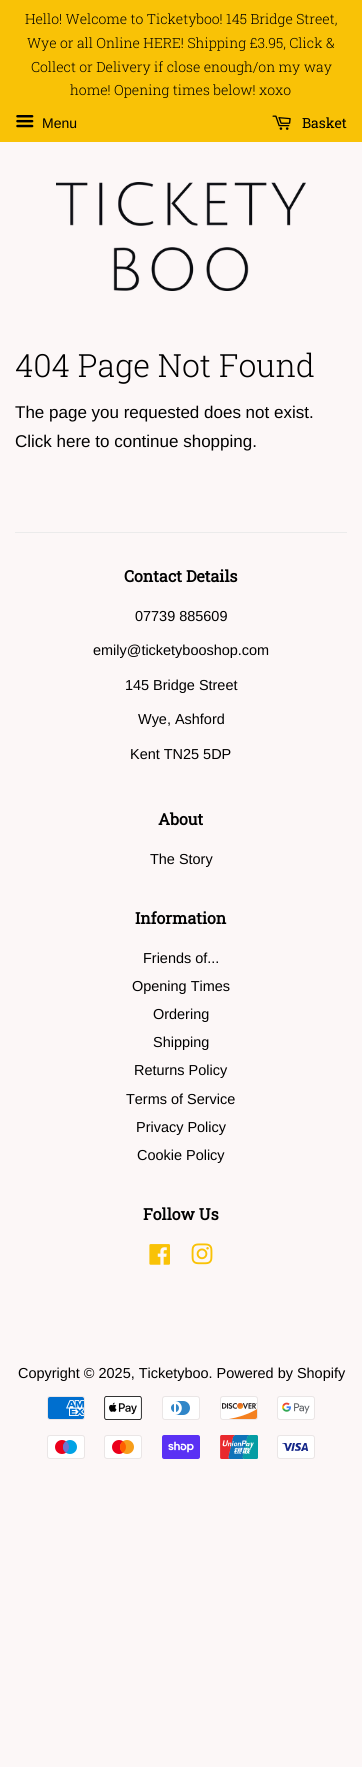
#include <cairo/cairo.h>
#include <math.h>
#include <stddef.h>

static cairo_t *cr;

static void use_color(int r, int g, int b) {
  cairo_set_source_rgb(cr, r / 255.0, g / 255.0, b / 255.0);
}

static void text(double x, double y, const char *s, const char *family, double size, int italic, int bold, int r, int g, int b) {
  cairo_select_font_face(cr, family, italic ? CAIRO_FONT_SLANT_ITALIC : CAIRO_FONT_SLANT_NORMAL,
    bold ? CAIRO_FONT_WEIGHT_BOLD : CAIRO_FONT_WEIGHT_NORMAL);
  cairo_set_font_size(cr, size);
  use_color(r, g, b);
  cairo_move_to(cr, x, y);
  cairo_show_text(cr, s);
}

static void box(double x, double y, double w, double h, int r, int g, int b) {
  use_color(r, g, b);
  cairo_rectangle(cr, x, y, w, h);
  cairo_fill(cr);
}

static void picture(const char *path, double x, double y, double w, double h) {
  cairo_surface_t *image = cairo_image_surface_create_from_png(path);
  cairo_save(cr);
  cairo_set_source_surface(cr, image, x, y);
  cairo_rectangle(cr, x, y, w, h);
  cairo_fill(cr);
  cairo_restore(cr);
  cairo_surface_destroy(image);
}

static void draw(void) {
  use_color(252, 247, 247);
  cairo_paint(cr);
  box(0, 0, 362, 142, 249, 194, 6);
  picture("img_01.png", 16, 115, 18, 13);
  picture("img_02.png", 272, 115, 19, 15);
  picture("img_03.png", 56, 182, 250, 109);
  box(15, 532, 332, 1, 235, 235, 235);
  picture("img_04.png", 149, 1244, 21, 21);
  picture("img_05.png", 191, 1243, 22, 22);
  picture("img_06.png", 47, 1396, 38, 24);
  picture("img_07.png", 104, 1396, 38, 24);
  picture("img_08.png", 162, 1396, 38, 24);
  picture("img_09.png", 220, 1396, 38, 24);
  picture("img_10.png", 277, 1396, 38, 24);
  picture("img_11.png", 47, 1435, 38, 24);
  picture("img_12.png", 104, 1435, 38, 24);
  picture("img_13.png", 162, 1435, 38, 24);
  picture("img_14.png", 220, 1435, 38, 24);
  picture("img_15.png", 277, 1435, 38, 24);
  text(25, 24, "Hello! Welcome to Ticketyboo! 145 Bridge Street,", "Roboto Slab Light", 14, 0, 0, 0, 0, 0);
  text(27, 48, "Wye or all Online HERE! Shipping £3.95, Click &", "Roboto Slab Light", 14, 0, 0, 0, 0, 0);
  text(31, 72, "Collect or Delivery if close enough/on my way", "Roboto Slab Light", 14, 0, 0, 0, 0, 0);
  text(70, 95, "home! Opening times below! xoxo", "Roboto Slab Light", 14, 0, 0, 0, 0, 0);
  text(42, 128, "Menu", "Arimo", 14, 0, 0, 0, 0, 0);
  text(302, 128, "Basket", "Roboto Slab", 14, 0, 0, 0, 0, 0);
  text(15, 377, "404 Page Not Found", "Roboto Slab Light", 32, 0, 0, 0, 0, 0);
  text(15, 418, "The page you requested does not exist.", "Arimo", 17, 0, 0, 0, 0, 0);
  text(15, 447, "Click here to continue shopping.", "Arimo", 17, 0, 0, 0, 0, 0);
  text(124, 582, "Contact Details", "Roboto Slab", 16, 0, 1, 0, 0, 0);
  text(135, 621, "07739 885609", "Arimo", 14.45, 0, 0, 0, 0, 0);
  text(93, 655, "emily@ticketybooshop.com", "Arimo", 14.45, 0, 0, 0, 0, 0);
  text(125, 690, "145 Bridge Street", "Arimo", 14.45, 0, 0, 0, 0, 0);
  text(138, 724, "Wye, Ashford", "Arimo", 14.45, 0, 0, 0, 0, 0);
  text(130, 759, "Kent TN25 5DP", "Arimo", 14.45, 0, 0, 0, 0, 0);
  text(158, 825, "About", "Roboto Slab", 16, 0, 1, 0, 0, 0);
  text(150, 864, "The Story", "Arimo", 14.45, 0, 0, 0, 0, 0);
  text(135, 924, "Information", "Roboto Slab", 16, 0, 1, 0, 0, 0);
  text(143, 963, "Friends of...", "Arimo", 14.45, 0, 0, 0, 0, 0);
  text(132, 991, "Opening Times", "Arimo", 14.45, 0, 0, 0, 0, 0);
  text(153, 1019, "Ordering", "Arimo", 14.45, 0, 0, 0, 0, 0);
  text(153, 1047, "Shipping", "Arimo", 14.45, 0, 0, 0, 0, 0);
  text(134, 1075, "Returns Policy", "Arimo", 14.45, 0, 0, 0, 0, 0);
  text(126, 1104, "Terms of Service", "Arimo", 14.45, 0, 0, 0, 0, 0);
  text(136, 1132, "Privacy Policy", "Arimo", 14.45, 0, 0, 0, 0, 0);
  text(137, 1160, "Cookie Policy", "Arimo", 14.45, 0, 0, 0, 0, 0);
  text(143, 1220, "Follow Us", "Roboto Slab", 16, 0, 1, 0, 0, 0);
  text(18, 1378, "Copyright © 2025, Ticketyboo. Powered by Shopify", "Arimo", 14.45, 0, 0, 0, 0, 0);
}

int main(void) {
  cairo_surface_t *surface = cairo_image_surface_create(CAIRO_FORMAT_RGB24, 362, 1767);
  cr = cairo_create(surface);
  cairo_font_options_t *options = cairo_font_options_create();
  cairo_font_options_set_hint_metrics(options, CAIRO_HINT_METRICS_OFF);
  cairo_font_options_set_hint_style(options, CAIRO_HINT_STYLE_NONE);
  cairo_set_font_options(cr, options);
  cairo_set_miter_limit(cr, 4);
  draw();
  cairo_surface_write_to_png(surface, "out.png");
  cairo_font_options_destroy(options);
  cairo_destroy(cr);
  cairo_surface_destroy(surface);
  return 0;
}
